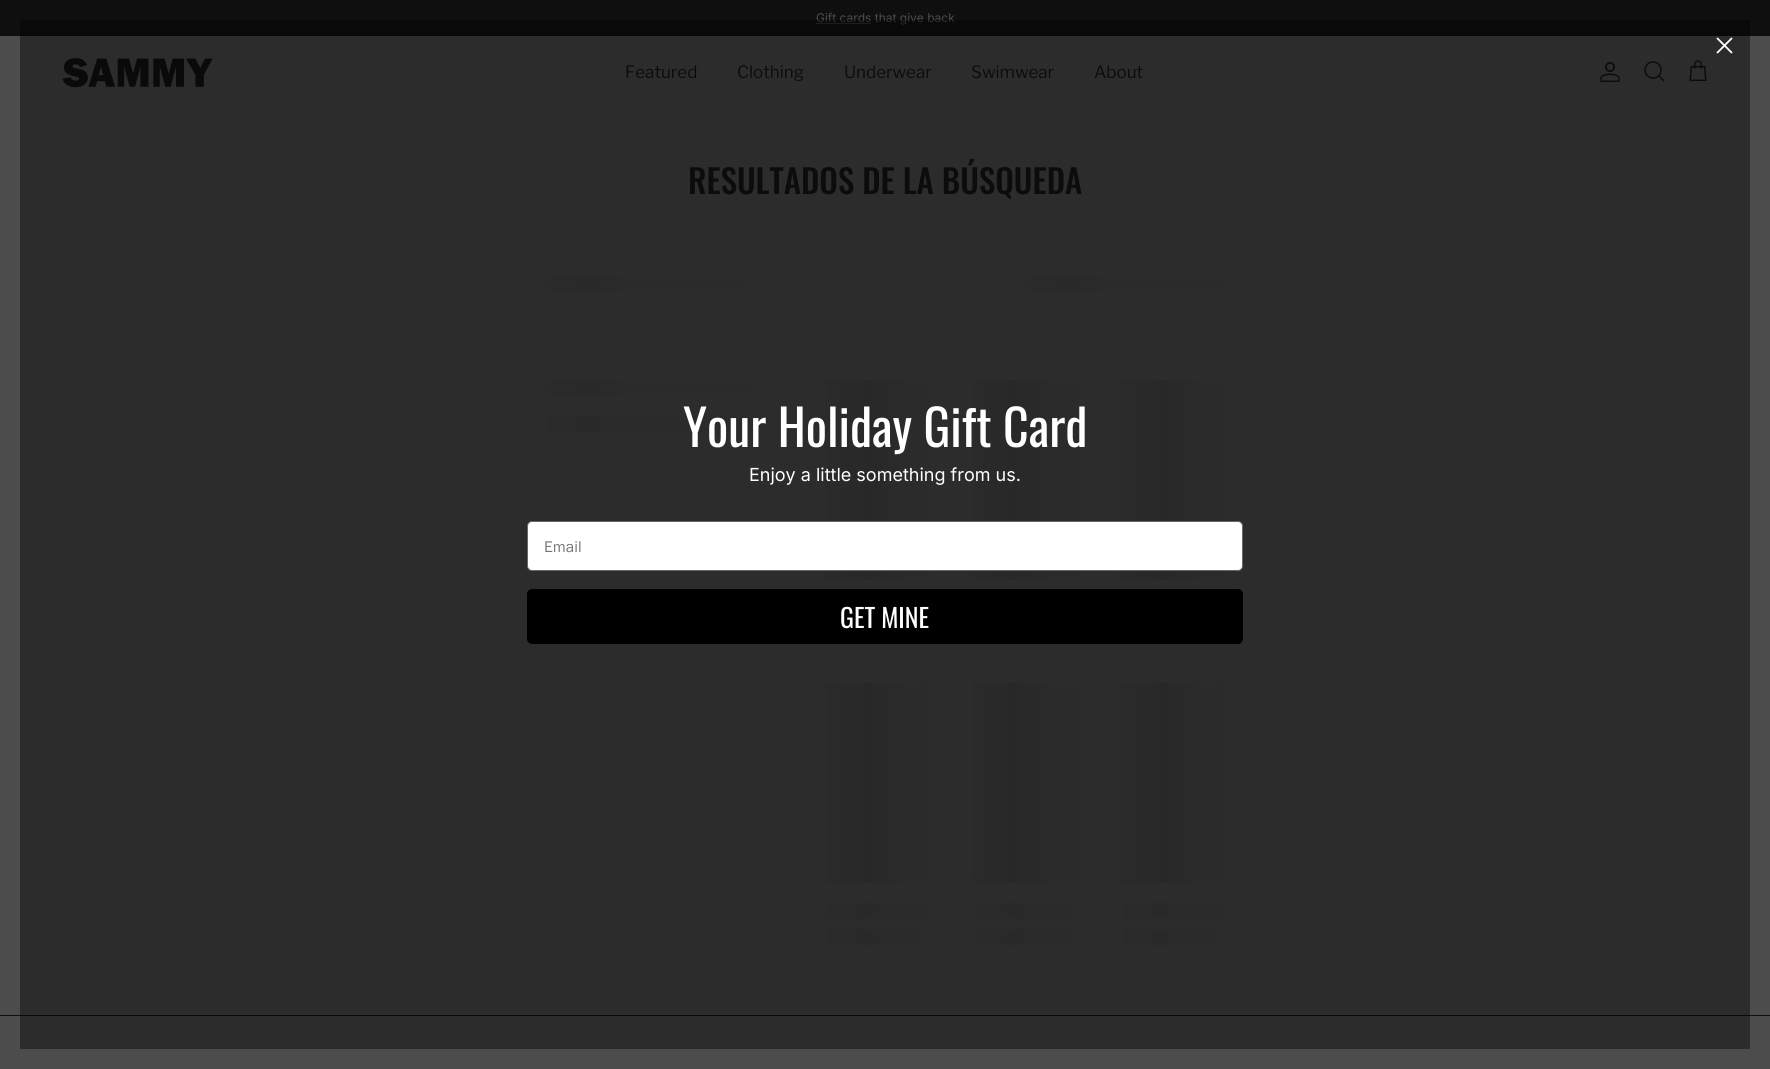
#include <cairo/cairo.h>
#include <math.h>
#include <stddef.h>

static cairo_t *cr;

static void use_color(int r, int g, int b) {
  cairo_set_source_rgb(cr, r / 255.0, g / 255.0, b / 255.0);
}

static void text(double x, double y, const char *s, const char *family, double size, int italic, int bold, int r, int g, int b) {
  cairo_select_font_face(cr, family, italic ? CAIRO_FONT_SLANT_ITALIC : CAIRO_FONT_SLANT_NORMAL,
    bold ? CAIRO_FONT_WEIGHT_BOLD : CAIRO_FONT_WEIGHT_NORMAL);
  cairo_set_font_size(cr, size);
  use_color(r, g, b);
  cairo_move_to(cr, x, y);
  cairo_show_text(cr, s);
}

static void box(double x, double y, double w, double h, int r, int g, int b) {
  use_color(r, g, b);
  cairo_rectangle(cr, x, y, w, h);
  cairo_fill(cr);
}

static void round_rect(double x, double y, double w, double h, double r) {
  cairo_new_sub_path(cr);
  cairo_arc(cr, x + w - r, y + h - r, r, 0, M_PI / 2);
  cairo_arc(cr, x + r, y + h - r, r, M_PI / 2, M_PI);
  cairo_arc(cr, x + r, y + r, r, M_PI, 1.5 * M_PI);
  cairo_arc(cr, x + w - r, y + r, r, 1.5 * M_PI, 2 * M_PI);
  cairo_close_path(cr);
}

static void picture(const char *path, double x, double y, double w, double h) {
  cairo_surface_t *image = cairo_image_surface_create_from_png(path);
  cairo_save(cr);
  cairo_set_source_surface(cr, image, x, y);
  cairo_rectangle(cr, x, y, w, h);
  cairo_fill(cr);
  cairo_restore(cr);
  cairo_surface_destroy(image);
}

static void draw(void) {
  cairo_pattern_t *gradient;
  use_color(76, 76, 76);
  cairo_paint(cr);
  box(0, 0, 1770, 36, 15, 15, 15);
  box(816, 23, 55, 1, 52, 52, 52);
  picture("img_01.png", 62, 58, 151, 30);
  picture("img_02.png", 1600, 62, 20, 20);
  cairo_arc(cr, 1653, 70, 8, 0, 2 * M_PI);
  use_color(21, 21, 21);
  cairo_set_line_width(cr, 1.5);
  cairo_stroke(cr);
  cairo_new_path(cr);
  cairo_move_to(cr, 1659, 76);
  cairo_line_to(cr, 1663.5, 80.5);
  cairo_set_line_cap(cr, CAIRO_LINE_CAP_SQUARE);
  cairo_stroke(cr);
  picture("img_03.png", 1689, 60, 18, 21);
  gradient = cairo_pattern_create_linear(545, 284, 1145, 284);
  cairo_pattern_add_color_stop_rgba(gradient, 0, 0.29, 0.29, 0.29, 1);
  cairo_pattern_add_color_stop_rgba(gradient, 0.07, 0.278, 0.278, 0.278, 1);
  cairo_pattern_add_color_stop_rgba(gradient, 0.13, 0.29, 0.29, 0.29, 1);
  cairo_set_source(cr, gradient);
  cairo_pattern_destroy(gradient);
  round_rect(545, 276, 200, 16, 7);
  cairo_fill(cr);
  gradient = cairo_pattern_create_linear(1025, 284, 1625, 284);
  cairo_pattern_add_color_stop_rgba(gradient, 0, 0.29, 0.29, 0.29, 1);
  cairo_pattern_add_color_stop_rgba(gradient, 0.07, 0.278, 0.278, 0.278, 1);
  cairo_pattern_add_color_stop_rgba(gradient, 0.13, 0.29, 0.29, 0.29, 1);
  cairo_set_source(cr, gradient);
  cairo_pattern_destroy(gradient);
  round_rect(1025, 276, 200, 16, 7);
  cairo_fill(cr);
  gradient = cairo_pattern_create_linear(545, 388, 1145, 388);
  cairo_pattern_add_color_stop_rgba(gradient, 0, 0.29, 0.29, 0.29, 1);
  cairo_pattern_add_color_stop_rgba(gradient, 0.07, 0.278, 0.278, 0.278, 1);
  cairo_pattern_add_color_stop_rgba(gradient, 0.13, 0.29, 0.29, 0.29, 1);
  cairo_set_source(cr, gradient);
  cairo_pattern_destroy(gradient);
  round_rect(545, 380, 210, 16, 7);
  cairo_fill(cr);
  gradient = cairo_pattern_create_linear(545, 424, 1145, 424);
  cairo_pattern_add_color_stop_rgba(gradient, 0, 0.29, 0.29, 0.29, 1);
  cairo_pattern_add_color_stop_rgba(gradient, 0.07, 0.278, 0.278, 0.278, 1);
  cairo_pattern_add_color_stop_rgba(gradient, 0.13, 0.29, 0.29, 0.29, 1);
  cairo_set_source(cr, gradient);
  cairo_pattern_destroy(gradient);
  round_rect(545, 416, 210, 16, 7);
  cairo_fill(cr);
  use_color(64, 64, 64);
  round_rect(825, 380, 106, 200, 5);
  cairo_fill(cr);
  gradient = cairo_pattern_create_linear(825, 480, 1425, 480);
  cairo_pattern_add_color_stop_rgba(gradient, 0, 0.29, 0.29, 0.29, 1);
  cairo_pattern_add_color_stop_rgba(gradient, 0.07, 0.275, 0.275, 0.275, 0.8);
  cairo_pattern_add_color_stop_rgba(gradient, 0.13, 0.29, 0.29, 0.29, 1);
  cairo_set_source(cr, gradient);
  cairo_pattern_destroy(gradient);
  round_rect(825, 380, 106, 200, 5);
  cairo_fill(cr);
  use_color(64, 64, 64);
  round_rect(972, 380, 106, 200, 5);
  cairo_fill(cr);
  gradient = cairo_pattern_create_linear(972, 480, 1572, 480);
  cairo_pattern_add_color_stop_rgba(gradient, 0, 0.29, 0.29, 0.29, 1);
  cairo_pattern_add_color_stop_rgba(gradient, 0.07, 0.275, 0.275, 0.275, 0.8);
  cairo_pattern_add_color_stop_rgba(gradient, 0.13, 0.29, 0.29, 0.29, 1);
  cairo_set_source(cr, gradient);
  cairo_pattern_destroy(gradient);
  round_rect(972, 380, 106, 200, 5);
  cairo_fill(cr);
  use_color(64, 64, 64);
  round_rect(1119, 380, 106, 200, 5);
  cairo_fill(cr);
  gradient = cairo_pattern_create_linear(1119, 480, 1719, 480);
  cairo_pattern_add_color_stop_rgba(gradient, 0, 0.29, 0.29, 0.29, 1);
  cairo_pattern_add_color_stop_rgba(gradient, 0.07, 0.275, 0.275, 0.275, 0.8);
  cairo_pattern_add_color_stop_rgba(gradient, 0.13, 0.29, 0.29, 0.29, 1);
  cairo_set_source(cr, gradient);
  cairo_pattern_destroy(gradient);
  round_rect(1119, 380, 106, 200, 5);
  cairo_fill(cr);
  use_color(64, 64, 64);
  round_rect(825, 683, 106, 200, 5);
  cairo_fill(cr);
  gradient = cairo_pattern_create_linear(825, 783, 1425, 783);
  cairo_pattern_add_color_stop_rgba(gradient, 0, 0.29, 0.29, 0.29, 1);
  cairo_pattern_add_color_stop_rgba(gradient, 0.07, 0.275, 0.275, 0.275, 0.8);
  cairo_pattern_add_color_stop_rgba(gradient, 0.13, 0.29, 0.29, 0.29, 1);
  cairo_set_source(cr, gradient);
  cairo_pattern_destroy(gradient);
  round_rect(825, 683, 106, 200, 5);
  cairo_fill(cr);
  gradient = cairo_pattern_create_linear(825, 911, 1425, 911);
  cairo_pattern_add_color_stop_rgba(gradient, 0, 0.29, 0.29, 0.29, 1);
  cairo_pattern_add_color_stop_rgba(gradient, 0.07, 0.278, 0.278, 0.278, 1);
  cairo_pattern_add_color_stop_rgba(gradient, 0.13, 0.29, 0.29, 0.29, 1);
  cairo_set_source(cr, gradient);
  cairo_pattern_destroy(gradient);
  round_rect(825, 903, 106, 16, 7);
  cairo_fill(cr);
  gradient = cairo_pattern_create_linear(825, 937, 1425, 937);
  cairo_pattern_add_color_stop_rgba(gradient, 0, 0.29, 0.29, 0.29, 1);
  cairo_pattern_add_color_stop_rgba(gradient, 0.07, 0.278, 0.278, 0.278, 1);
  cairo_pattern_add_color_stop_rgba(gradient, 0.13, 0.29, 0.29, 0.29, 1);
  cairo_set_source(cr, gradient);
  cairo_pattern_destroy(gradient);
  round_rect(825, 929, 100, 16, 7);
  cairo_fill(cr);
  use_color(64, 64, 64);
  round_rect(972, 683, 106, 200, 5);
  cairo_fill(cr);
  gradient = cairo_pattern_create_linear(972, 783, 1572, 783);
  cairo_pattern_add_color_stop_rgba(gradient, 0, 0.29, 0.29, 0.29, 1);
  cairo_pattern_add_color_stop_rgba(gradient, 0.07, 0.275, 0.275, 0.275, 0.8);
  cairo_pattern_add_color_stop_rgba(gradient, 0.13, 0.29, 0.29, 0.29, 1);
  cairo_set_source(cr, gradient);
  cairo_pattern_destroy(gradient);
  round_rect(972, 683, 106, 200, 5);
  cairo_fill(cr);
  gradient = cairo_pattern_create_linear(972, 911, 1572, 911);
  cairo_pattern_add_color_stop_rgba(gradient, 0, 0.29, 0.29, 0.29, 1);
  cairo_pattern_add_color_stop_rgba(gradient, 0.07, 0.278, 0.278, 0.278, 1);
  cairo_pattern_add_color_stop_rgba(gradient, 0.13, 0.29, 0.29, 0.29, 1);
  cairo_set_source(cr, gradient);
  cairo_pattern_destroy(gradient);
  round_rect(972, 903, 106, 16, 7);
  cairo_fill(cr);
  gradient = cairo_pattern_create_linear(972, 937, 1572, 937);
  cairo_pattern_add_color_stop_rgba(gradient, 0, 0.29, 0.29, 0.29, 1);
  cairo_pattern_add_color_stop_rgba(gradient, 0.07, 0.278, 0.278, 0.278, 1);
  cairo_pattern_add_color_stop_rgba(gradient, 0.13, 0.29, 0.29, 0.29, 1);
  cairo_set_source(cr, gradient);
  cairo_pattern_destroy(gradient);
  round_rect(972, 929, 100, 16, 7);
  cairo_fill(cr);
  use_color(64, 64, 64);
  round_rect(1119, 683, 106, 200, 5);
  cairo_fill(cr);
  gradient = cairo_pattern_create_linear(1119, 783, 1719, 783);
  cairo_pattern_add_color_stop_rgba(gradient, 0, 0.29, 0.29, 0.29, 1);
  cairo_pattern_add_color_stop_rgba(gradient, 0.07, 0.275, 0.275, 0.275, 0.8);
  cairo_pattern_add_color_stop_rgba(gradient, 0.13, 0.29, 0.29, 0.29, 1);
  cairo_set_source(cr, gradient);
  cairo_pattern_destroy(gradient);
  round_rect(1119, 683, 106, 200, 5);
  cairo_fill(cr);
  gradient = cairo_pattern_create_linear(1119, 911, 1719, 911);
  cairo_pattern_add_color_stop_rgba(gradient, 0, 0.29, 0.29, 0.29, 1);
  cairo_pattern_add_color_stop_rgba(gradient, 0.07, 0.278, 0.278, 0.278, 1);
  cairo_pattern_add_color_stop_rgba(gradient, 0.13, 0.29, 0.29, 0.29, 1);
  cairo_set_source(cr, gradient);
  cairo_pattern_destroy(gradient);
  round_rect(1119, 903, 106, 16, 7);
  cairo_fill(cr);
  gradient = cairo_pattern_create_linear(1119, 937, 1719, 937);
  cairo_pattern_add_color_stop_rgba(gradient, 0, 0.29, 0.29, 0.29, 1);
  cairo_pattern_add_color_stop_rgba(gradient, 0.07, 0.278, 0.278, 0.278, 1);
  cairo_pattern_add_color_stop_rgba(gradient, 0.13, 0.29, 0.29, 0.29, 1);
  cairo_set_source(cr, gradient);
  cairo_pattern_destroy(gradient);
  round_rect(1119, 929, 100, 16, 7);
  cairo_fill(cr);
  box(0, 1015, 1770, 1, 15, 15, 15);
  text(816, 22, "Gift cards that give back", "Inter", 12, 0, 0, 76, 76, 76);
  text(625, 78, "Featured", "Libre Franklin", 17, 0, 0, 21, 21, 21);
  text(737, 78, "Clothing", "Libre Franklin", 17, 0, 0, 21, 21, 21);
  text(844, 78, "Underwear", "Libre Franklin", 17, 0, 0, 21, 21, 21);
  text(971, 78, "Swimwear", "Libre Franklin", 17, 0, 0, 21, 21, 21);
  text(1094, 78, "About", "Libre Franklin", 17, 0, 0, 21, 21, 21);
  text(688, 194, "RESULTADOS DE LA BÚSQUEDA", "Oswald Medium", 33, 0, 0, 21, 21, 21);
  cairo_set_source_rgba(cr, 0, 0, 0, 0.42);
  cairo_rectangle(cr, 20, 20, 1730, 1029);
  cairo_fill(cr);
  cairo_new_path(cr);
  cairo_move_to(cr, 1717.5, 38.5);
  cairo_line_to(cr, 1731.5, 52.5);
  cairo_move_to(cr, 1717.5, 52.5);
  cairo_line_to(cr, 1731.5, 38.5);
  cairo_close_path(cr);
  use_color(255, 255, 255);
  cairo_set_line_width(cr, 1.8);
  cairo_set_line_cap(cr, CAIRO_LINE_CAP_ROUND);
  cairo_set_line_join(cr, CAIRO_LINE_JOIN_ROUND);
  cairo_stroke(cr);
  text(683, 447, "Your Holiday Gift Card", "Oswald", 50, 0, 0, 255, 255, 255);
  text(749, 481, "Enjoy a little something from us.", "Inter", 18, 0, 0, 255, 255, 255);
  round_rect(527.5, 521.5, 715, 49, 4.5);
  cairo_fill_preserve(cr);
  use_color(96, 106, 114);
  cairo_set_line_width(cr, 1);
  cairo_set_line_cap(cr, CAIRO_LINE_CAP_BUTT);
  cairo_set_line_join(cr, CAIRO_LINE_JOIN_MITER);
  cairo_stroke(cr);
  text(544, 552, "Email", "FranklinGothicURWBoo", 16, 0, 0, 118, 118, 118);
  use_color(0, 0, 0);
  round_rect(529.5, 591.5, 711, 50, 2.5);
  cairo_fill_preserve(cr);
  cairo_set_line_width(cr, 5);
  cairo_stroke(cr);
  text(840, 628, "GET MINE", "Oswald", 26, 0, 0, 255, 255, 255);
}

int main(void) {
  cairo_surface_t *surface = cairo_image_surface_create(CAIRO_FORMAT_RGB24, 1770, 1069);
  cr = cairo_create(surface);
  cairo_font_options_t *options = cairo_font_options_create();
  cairo_font_options_set_hint_metrics(options, CAIRO_HINT_METRICS_OFF);
  cairo_font_options_set_hint_style(options, CAIRO_HINT_STYLE_NONE);
  cairo_set_font_options(cr, options);
  cairo_set_miter_limit(cr, 4);
  draw();
  cairo_surface_write_to_png(surface, "out.png");
  cairo_font_options_destroy(options);
  cairo_destroy(cr);
  cairo_surface_destroy(surface);
  return 0;
}
